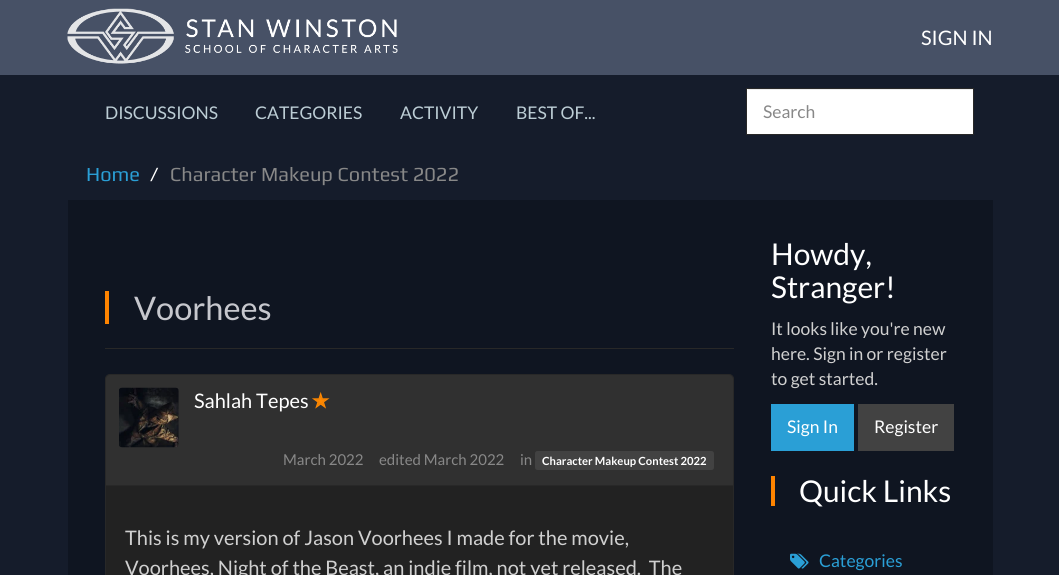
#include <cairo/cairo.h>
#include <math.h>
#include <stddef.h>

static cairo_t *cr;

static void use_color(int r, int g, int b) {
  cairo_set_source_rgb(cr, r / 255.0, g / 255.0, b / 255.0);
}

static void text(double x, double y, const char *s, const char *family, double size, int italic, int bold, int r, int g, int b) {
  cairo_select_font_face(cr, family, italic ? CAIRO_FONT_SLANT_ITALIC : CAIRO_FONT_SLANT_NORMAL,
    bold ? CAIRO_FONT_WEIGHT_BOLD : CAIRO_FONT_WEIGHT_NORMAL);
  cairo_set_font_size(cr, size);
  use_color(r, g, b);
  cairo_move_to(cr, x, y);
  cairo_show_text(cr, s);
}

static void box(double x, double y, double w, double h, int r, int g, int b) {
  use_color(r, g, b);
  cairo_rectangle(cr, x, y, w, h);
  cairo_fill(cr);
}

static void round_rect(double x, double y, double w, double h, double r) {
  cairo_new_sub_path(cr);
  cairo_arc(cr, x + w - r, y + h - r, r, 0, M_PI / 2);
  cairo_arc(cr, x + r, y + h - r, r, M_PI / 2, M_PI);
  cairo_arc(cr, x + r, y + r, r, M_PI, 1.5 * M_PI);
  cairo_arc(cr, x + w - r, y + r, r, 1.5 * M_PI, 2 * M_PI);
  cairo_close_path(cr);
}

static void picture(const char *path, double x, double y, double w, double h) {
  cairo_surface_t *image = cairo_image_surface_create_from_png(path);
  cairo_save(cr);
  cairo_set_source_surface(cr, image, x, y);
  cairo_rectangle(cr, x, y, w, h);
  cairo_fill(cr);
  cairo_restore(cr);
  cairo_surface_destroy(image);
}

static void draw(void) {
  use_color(21, 28, 43);
  cairo_paint(cr);
  box(0, 0, 1059, 75, 71, 81, 102);
  picture("img_01.png", 67, 8, 331, 56);
  box(747, 89, 226, 45, 255, 255, 255);
  box(748, 89, 225, 1, 236, 236, 236);
  cairo_rectangle(cr, 746.5, 88.5, 227, 46);
  use_color(40, 40, 40);
  cairo_set_line_width(cr, 1);
  cairo_stroke(cr);
  box(68, 200, 925, 375, 15, 21, 33);
  box(105, 348, 629, 1, 40, 40, 40);
  box(105, 291, 4, 33, 255, 132, 0);
  use_color(34, 34, 34);
  round_rect(105.5, 374.5, 628, 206, 4.5);
  cairo_fill_preserve(cr);
  use_color(40, 40, 40);
  cairo_stroke(cr);
  use_color(48, 48, 48);
  cairo_new_path(cr);
  cairo_move_to(cr, 110, 375);
  cairo_line_to(cr, 729, 375);
  cairo_curve_to(cr, 731, 375, 733, 377, 733, 379);
  cairo_line_to(cr, 733, 486);
  cairo_line_to(cr, 106, 486);
  cairo_line_to(cr, 106, 379);
  cairo_curve_to(cr, 106, 377, 108, 375, 110, 375);
  cairo_close_path(cr);
  cairo_fill(cr);
  box(106, 485, 627, 1, 40, 40, 40);
  picture("img_02.png", 119, 387, 60, 61);
  use_color(66, 66, 66);
  round_rect(535, 451, 179, 19, 2.5);
  cairo_fill(cr);
  box(771, 404, 83, 47, 42, 159, 214);
  box(858, 404, 96, 47, 66, 66, 66);
  box(771, 476, 4, 30, 255, 132, 0);
  picture("img_03.png", 790, 553, 19, 16);
  text(921, 45, "SIGN IN", "Lato", 20, 0, 0, 255, 255, 255);
  text(105, 119, "DISCUSSIONS", "Lato", 17.5, 0, 0, 188, 205, 213);
  text(255, 119, "CATEGORIES", "Lato", 17.5, 0, 0, 188, 205, 213);
  text(400, 119, "ACTIVITY", "Lato", 17.5, 0, 0, 188, 205, 213);
  text(516, 119, "BEST OF...", "Lato", 17.5, 0, 0, 188, 205, 213);
  text(763, 118, "Search", "Lato", 17.5, 0, 0, 136, 136, 136);
  text(86, 181, "Home", "Play", 20, 0, 0, 42, 159, 214);
  text(150, 181, "/", "Play", 20, 0, 0, 255, 255, 255);
  text(170, 181, "Character Makeup Contest 2022", "Play", 20, 0, 0, 136, 136, 136);
  text(134, 320, "Voorhees", "Lato", 32.5, 0, 0, 198, 199, 205);
  text(194, 408, "Sahlah Tepes", "Lato", 20, 0, 0, 255, 255, 255);
  text(312, 408, "✭", "DejaVu Sans", 20, 0, 1, 255, 136, 0);
  text(283, 465, "March 2022", "Lato", 15, 0, 0, 136, 136, 136);
  text(379, 465, "edited March 2022", "Lato", 15, 0, 0, 136, 136, 136);
  text(520, 465, "in", "Lato", 15, 0, 0, 136, 136, 136);
  text(542, 465, "Character Makeup Contest 2022", "Lato", 11.25, 0, 1, 255, 255, 255);
  text(125, 545, "This is my version of Jason Voorhees I made for the movie,", "Lato", 20, 0, 0, 208, 208, 208);
  text(125, 575, "Voorhees, Night of the Beast, an indie film, not yet released.  The", "Lato", 20, 0, 0, 208, 208, 208);
  text(771, 265, "Howdy,", "Lato", 30, 0, 0, 255, 255, 255);
  text(771, 298, "Stranger!", "Lato", 30, 0, 0, 255, 255, 255);
  text(771, 335, "It looks like you're new", "Lato", 17.5, 0, 0, 208, 208, 208);
  text(771, 360, "here. Sign in or register", "Lato", 17.5, 0, 0, 208, 208, 208);
  text(771, 385, "to get started.", "Lato", 17.5, 0, 0, 208, 208, 208);
  text(787, 433, "Sign In", "Lato", 17.5, 0, 0, 255, 255, 255);
  text(874, 433, "Register", "Lato", 17.5, 0, 0, 255, 255, 255);
  text(799, 502, "Quick Links", "Lato", 30, 0, 0, 255, 255, 255);
  text(819, 567, "Categories", "Lato", 17.5, 0, 0, 42, 159, 214);
}

int main(void) {
  cairo_surface_t *surface = cairo_image_surface_create(CAIRO_FORMAT_RGB24, 1059, 575);
  cr = cairo_create(surface);
  cairo_font_options_t *options = cairo_font_options_create();
  cairo_font_options_set_hint_metrics(options, CAIRO_HINT_METRICS_OFF);
  cairo_font_options_set_hint_style(options, CAIRO_HINT_STYLE_NONE);
  cairo_set_font_options(cr, options);
  cairo_set_miter_limit(cr, 4);
  draw();
  cairo_surface_write_to_png(surface, "out.png");
  cairo_font_options_destroy(options);
  cairo_destroy(cr);
  cairo_surface_destroy(surface);
  return 0;
}
